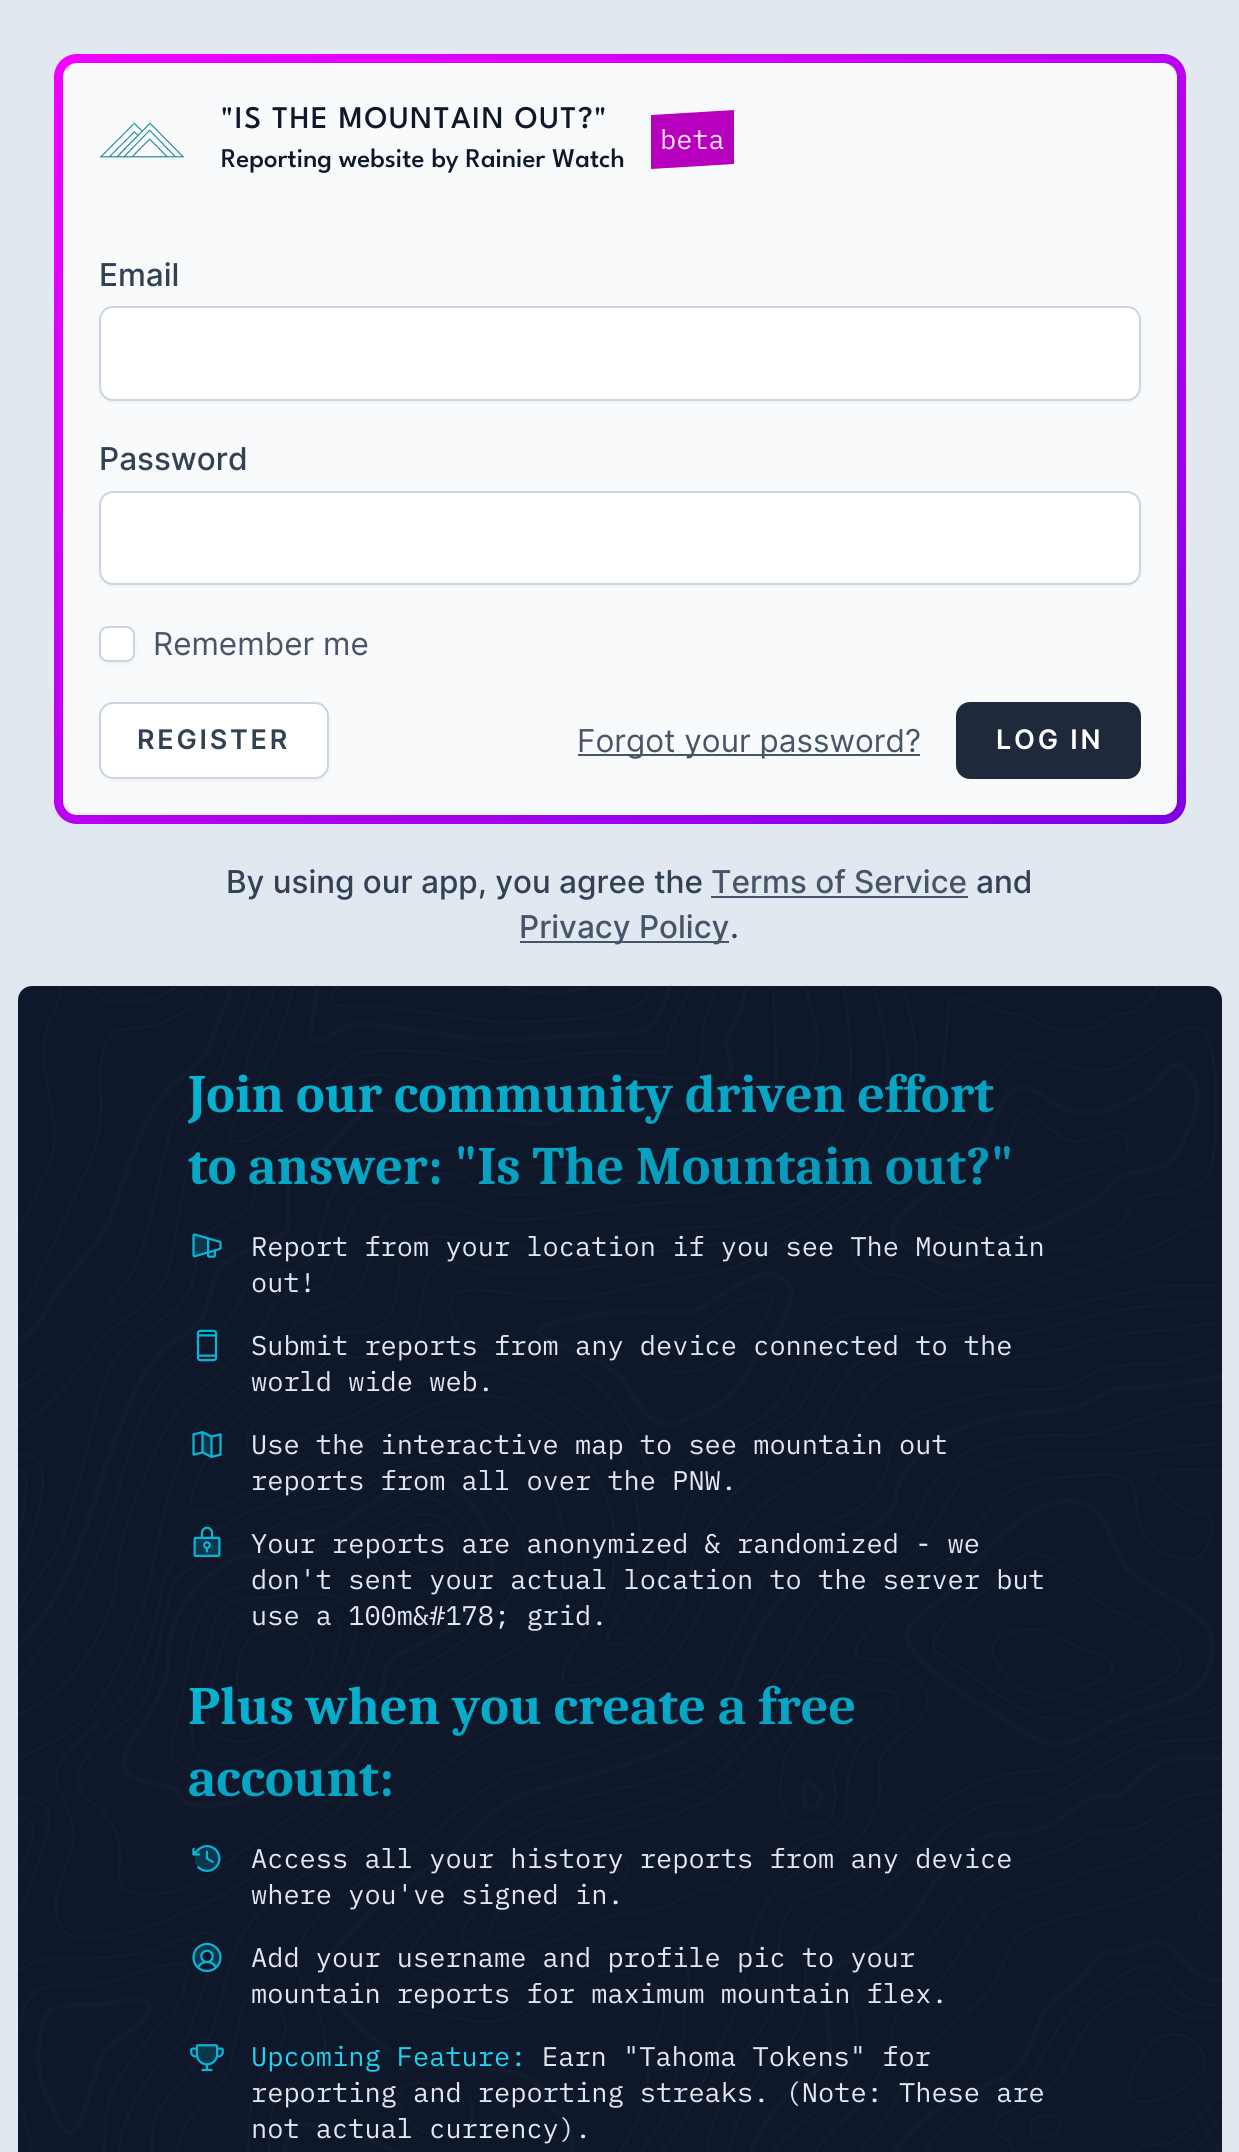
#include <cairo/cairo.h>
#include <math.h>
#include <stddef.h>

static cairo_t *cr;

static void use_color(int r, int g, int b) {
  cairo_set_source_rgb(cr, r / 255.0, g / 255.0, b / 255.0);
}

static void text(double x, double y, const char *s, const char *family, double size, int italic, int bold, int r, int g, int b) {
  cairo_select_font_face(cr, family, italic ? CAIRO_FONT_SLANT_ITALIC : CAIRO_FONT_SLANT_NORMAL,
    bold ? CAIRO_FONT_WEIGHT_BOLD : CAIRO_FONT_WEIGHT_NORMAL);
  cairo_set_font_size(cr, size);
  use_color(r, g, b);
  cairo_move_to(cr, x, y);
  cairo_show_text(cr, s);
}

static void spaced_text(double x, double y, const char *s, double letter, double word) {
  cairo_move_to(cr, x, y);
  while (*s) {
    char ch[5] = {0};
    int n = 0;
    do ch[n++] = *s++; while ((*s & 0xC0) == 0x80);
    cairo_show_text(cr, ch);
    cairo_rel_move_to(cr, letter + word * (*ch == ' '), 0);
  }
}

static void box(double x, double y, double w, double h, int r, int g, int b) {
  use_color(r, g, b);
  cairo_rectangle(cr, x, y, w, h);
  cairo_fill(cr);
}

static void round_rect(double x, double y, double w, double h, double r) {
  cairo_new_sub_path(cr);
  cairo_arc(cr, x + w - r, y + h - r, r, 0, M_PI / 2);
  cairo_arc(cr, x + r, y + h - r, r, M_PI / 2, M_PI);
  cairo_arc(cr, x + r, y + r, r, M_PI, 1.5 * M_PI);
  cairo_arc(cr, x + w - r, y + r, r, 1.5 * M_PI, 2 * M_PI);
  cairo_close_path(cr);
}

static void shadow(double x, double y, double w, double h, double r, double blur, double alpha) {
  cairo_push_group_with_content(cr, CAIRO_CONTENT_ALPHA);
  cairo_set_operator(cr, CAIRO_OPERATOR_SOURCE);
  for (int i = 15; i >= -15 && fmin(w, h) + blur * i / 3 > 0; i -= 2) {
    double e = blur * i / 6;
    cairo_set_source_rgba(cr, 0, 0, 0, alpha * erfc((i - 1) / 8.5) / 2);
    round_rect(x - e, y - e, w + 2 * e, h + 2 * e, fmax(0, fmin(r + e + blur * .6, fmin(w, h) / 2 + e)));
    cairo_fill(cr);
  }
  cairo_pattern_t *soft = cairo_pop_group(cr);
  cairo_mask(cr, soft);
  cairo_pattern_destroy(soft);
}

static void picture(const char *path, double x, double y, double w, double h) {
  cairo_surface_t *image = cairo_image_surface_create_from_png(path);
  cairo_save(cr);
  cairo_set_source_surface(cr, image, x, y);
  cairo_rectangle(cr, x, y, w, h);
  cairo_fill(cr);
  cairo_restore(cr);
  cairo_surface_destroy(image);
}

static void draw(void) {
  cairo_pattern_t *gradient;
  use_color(226, 232, 240);
  cairo_paint(cr);
  gradient = cairo_pattern_create_linear(262, -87, 978, 965);
  cairo_pattern_add_color_stop_rgba(gradient, 0, 0.957, 0, 1, 1);
  cairo_pattern_add_color_stop_rgba(gradient, 1, 0.498, 0, 0.902, 1);
  cairo_set_source(cr, gradient);
  cairo_pattern_destroy(gradient);
  round_rect(54, 54, 1132, 770, 23);
  cairo_fill(cr);
  use_color(248, 250, 252);
  round_rect(63, 63, 1114, 752, 14);
  cairo_fill(cr);
  picture("img_01.png", 99, 122, 86, 36);
  use_color(183, 0, 191);
  cairo_new_path(cr);
  cairo_move_to(cr, 651, 115);
  cairo_line_to(cr, 734, 110);
  cairo_line_to(cr, 734, 164);
  cairo_line_to(cr, 651, 169);
  cairo_close_path(cr);
  cairo_fill(cr);
  use_color(0, 0, 0);
  shadow(99, 308, 1042, 95, 14, 2, 0.05);
  use_color(255, 255, 255);
  round_rect(100, 307, 1040, 93, 13);
  cairo_fill_preserve(cr);
  use_color(203, 213, 225);
  cairo_stroke(cr);
  use_color(0, 0, 0);
  shadow(99, 493, 1042, 94, 14, 2, 0.05);
  use_color(255, 255, 255);
  round_rect(100, 492, 1040, 92, 13);
  cairo_fill_preserve(cr);
  use_color(203, 213, 225);
  cairo_stroke(cr);
  use_color(0, 0, 0);
  shadow(99, 628, 36, 36, 9, 2, 0.05);
  use_color(255, 255, 255);
  round_rect(100, 627, 34, 34, 8);
  cairo_fill_preserve(cr);
  use_color(203, 213, 225);
  cairo_stroke(cr);
  use_color(0, 0, 0);
  shadow(99, 704, 230, 77, 14, 2, 0.05);
  use_color(255, 255, 255);
  round_rect(100, 703, 228, 75, 13);
  cairo_fill_preserve(cr);
  use_color(203, 213, 225);
  cairo_stroke(cr);
  box(578, 754, 342, 2, 71, 85, 105);
  use_color(30, 41, 59);
  round_rect(956, 702, 185, 77, 14);
  cairo_fill(cr);
  box(711, 896, 257, 2, 71, 85, 105);
  box(520, 941, 209, 2, 71, 85, 105);
  use_color(15, 23, 42);
  round_rect(18, 986, 1204, 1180, 14);
  cairo_fill(cr);
  picture("img_02.png", 18, 985, 1203, 1167);
  picture("img_03.png", 192, 1233, 30, 25);
  picture("img_04.png", 196, 1329, 22, 33);
  picture("img_05.png", 192, 1431, 30, 27);
  picture("img_06.png", 193, 1526, 28, 31);
  picture("img_07.png", 192, 1845, 29, 27);
  picture("img_08.png", 192, 1942, 30, 31);
  picture("img_09.png", 190, 2044, 34, 28);
  cairo_select_font_face(cr, "League Spartan Thin", CAIRO_FONT_SLANT_NORMAL, CAIRO_FONT_WEIGHT_NORMAL);
  cairo_set_font_size(cr, 31.5);
  spaced_text(221, 128, "\"IS THE MOUNTAIN OUT?\"", 1.6, 0);
  text(221, 167, "Reporting website by Rainier Watch", "League Spartan Thin", 27, 0, 0, 15, 23, 42);
  text(660, 149, "beta", "IBM Plex Mono", 27, 0, 0, 254, 230, 255);
  text(99, 286, "Email", "Inter Medium", 31.5, 0, 0, 51, 65, 85);
  text(99, 470, "Password", "Inter Medium", 31.5, 0, 0, 51, 65, 85);
  text(153, 655, "Remember me", "Inter", 31.5, 0, 0, 71, 85, 105);
  cairo_select_font_face(cr, "Inter SemiBold", CAIRO_FONT_SLANT_NORMAL, CAIRO_FONT_WEIGHT_NORMAL);
  cairo_set_font_size(cr, 27);
  use_color(51, 65, 85);
  spaced_text(137, 749, "REGISTER", 2.75, 0);
  text(577, 752, "Forgot your password?", "Inter", 31.5, 0, 0, 71, 85, 105);
  cairo_select_font_face(cr, "Inter SemiBold", CAIRO_FONT_SLANT_NORMAL, CAIRO_FONT_WEIGHT_NORMAL);
  cairo_set_font_size(cr, 27);
  use_color(255, 255, 255);
  spaced_text(996, 749, "LOG IN", 2.75, 0);
  text(226, 893, "By using our app, you agree the", "Inter Medium", 31.5, 0, 0, 51, 65, 85);
  text(711, 893, "Terms of Service", "Inter Medium", 31.5, 0, 0, 71, 85, 105);
  text(976, 893, "and", "Inter Medium", 31.5, 0, 0, 51, 65, 85);
  text(519, 938, "Privacy Policy", "Inter Medium", 31.5, 0, 0, 71, 85, 105);
  text(730, 938, ".", "Inter Medium", 31.5, 0, 0, 51, 65, 85);
  cairo_select_font_face(cr, "Caladea", CAIRO_FONT_SLANT_NORMAL, CAIRO_FONT_WEIGHT_BOLD);
  cairo_set_font_size(cr, 54);
  gradient = cairo_pattern_create_linear(597, 989, 643, 1270);
  cairo_pattern_add_color_stop_rgba(gradient, 0, 0.024, 0.714, 0.831, 1);
  cairo_pattern_add_color_stop_rgba(gradient, 1, 0.031, 0.569, 0.698, 1);
  cairo_set_source(cr, gradient);
  cairo_pattern_destroy(gradient);
  cairo_move_to(cr, 188, 1112);
  cairo_show_text(cr, "Join our community driven effort");
  cairo_move_to(cr, 188, 1184);
  cairo_show_text(cr, "to answer: \"Is The Mountain out?\"");
  text(251, 1256, "Report from your location if you see The Mountain", "IBM Plex Mono", 27, 0, 0, 226, 232, 240);
  text(251, 1292, "out!", "IBM Plex Mono", 27, 0, 0, 226, 232, 240);
  text(251, 1355, "Submit reports from any device connected to the", "IBM Plex Mono", 27, 0, 0, 226, 232, 240);
  text(251, 1391, "world wide web.", "IBM Plex Mono", 27, 0, 0, 226, 232, 240);
  text(251, 1454, "Use the interactive map to see mountain out", "IBM Plex Mono", 27, 0, 0, 226, 232, 240);
  text(251, 1490, "reports from all over the PNW.", "IBM Plex Mono", 27, 0, 0, 226, 232, 240);
  text(251, 1553, "Your reports are anonymized & randomized - we", "IBM Plex Mono", 27, 0, 0, 226, 232, 240);
  text(251, 1589, "don't sent your actual location to the server but", "IBM Plex Mono", 27, 0, 0, 226, 232, 240);
  text(251, 1625, "use a 100m&#178; grid.", "IBM Plex Mono", 27, 0, 0, 226, 232, 240);
  cairo_select_font_face(cr, "Caladea", CAIRO_FONT_SLANT_NORMAL, CAIRO_FONT_WEIGHT_BOLD);
  cairo_set_font_size(cr, 54);
  gradient = cairo_pattern_create_linear(597, 1601, 643, 1882);
  cairo_pattern_add_color_stop_rgba(gradient, 0, 0.024, 0.714, 0.831, 1);
  cairo_pattern_add_color_stop_rgba(gradient, 1, 0.031, 0.569, 0.698, 1);
  cairo_set_source(cr, gradient);
  cairo_pattern_destroy(gradient);
  cairo_move_to(cr, 188, 1724);
  cairo_show_text(cr, "Plus when you create a free");
  cairo_move_to(cr, 188, 1796);
  cairo_show_text(cr, "account:");
  text(251, 1868, "Access all your history reports from any device", "IBM Plex Mono", 27, 0, 0, 226, 232, 240);
  text(251, 1904, "where you've signed in.", "IBM Plex Mono", 27, 0, 0, 226, 232, 240);
  text(251, 1967, "Add your username and profile pic to your", "IBM Plex Mono", 27, 0, 0, 226, 232, 240);
  text(251, 2003, "mountain reports for maximum mountain flex.", "IBM Plex Mono", 27, 0, 0, 226, 232, 240);
  text(251, 2066, "Upcoming Feature:", "IBM Plex Mono", 27, 0, 0, 34, 211, 238);
  text(542, 2066, "Earn \"Tahoma Tokens\" for", "IBM Plex Mono", 27, 0, 0, 226, 232, 240);
  text(251, 2102, "reporting and reporting streaks. (Note: These are", "IBM Plex Mono", 27, 0, 0, 226, 232, 240);
  text(251, 2138, "not actual currency).", "IBM Plex Mono", 27, 0, 0, 226, 232, 240);
}

int main(void) {
  cairo_surface_t *surface = cairo_image_surface_create(CAIRO_FORMAT_RGB24, 1239, 2152);
  cr = cairo_create(surface);
  cairo_font_options_t *options = cairo_font_options_create();
  cairo_font_options_set_hint_metrics(options, CAIRO_HINT_METRICS_OFF);
  cairo_font_options_set_hint_style(options, CAIRO_HINT_STYLE_NONE);
  cairo_set_font_options(cr, options);
  cairo_set_miter_limit(cr, 4);
  draw();
  cairo_surface_write_to_png(surface, "out.png");
  cairo_font_options_destroy(options);
  cairo_destroy(cr);
  cairo_surface_destroy(surface);
  return 0;
}
